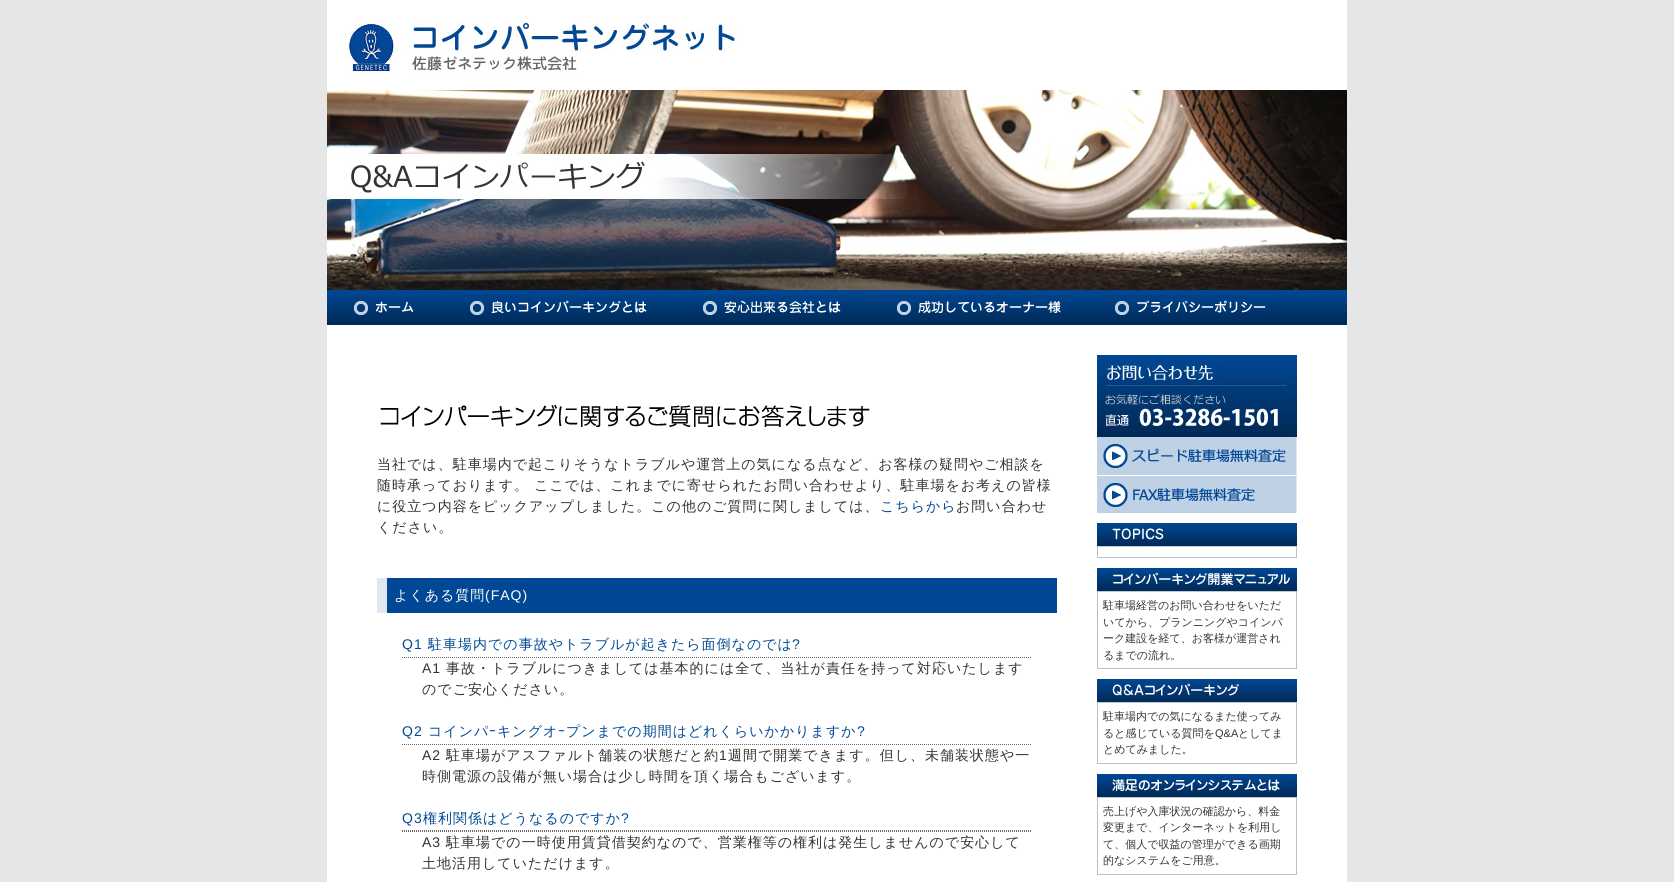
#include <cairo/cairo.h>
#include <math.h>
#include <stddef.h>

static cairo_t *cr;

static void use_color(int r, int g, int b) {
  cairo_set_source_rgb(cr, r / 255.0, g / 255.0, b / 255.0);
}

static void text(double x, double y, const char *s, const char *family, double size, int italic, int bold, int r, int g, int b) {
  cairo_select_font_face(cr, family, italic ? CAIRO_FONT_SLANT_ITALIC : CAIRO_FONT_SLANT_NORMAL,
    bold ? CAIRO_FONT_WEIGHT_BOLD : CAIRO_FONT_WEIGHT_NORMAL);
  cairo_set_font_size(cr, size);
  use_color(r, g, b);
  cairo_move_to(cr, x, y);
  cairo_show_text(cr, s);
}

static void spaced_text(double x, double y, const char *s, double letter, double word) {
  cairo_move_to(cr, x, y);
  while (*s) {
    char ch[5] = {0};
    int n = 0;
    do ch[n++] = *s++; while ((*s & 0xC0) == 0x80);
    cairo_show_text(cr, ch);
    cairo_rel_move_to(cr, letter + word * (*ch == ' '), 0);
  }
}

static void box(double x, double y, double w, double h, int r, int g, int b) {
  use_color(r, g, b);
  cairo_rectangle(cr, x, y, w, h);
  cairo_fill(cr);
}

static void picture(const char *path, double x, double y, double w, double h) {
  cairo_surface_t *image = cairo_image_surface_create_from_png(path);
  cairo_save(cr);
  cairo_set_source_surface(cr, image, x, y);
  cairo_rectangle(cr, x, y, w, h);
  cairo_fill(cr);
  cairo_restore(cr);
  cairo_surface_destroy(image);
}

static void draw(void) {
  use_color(230, 230, 230);
  cairo_paint(cr);
  box(327, 0, 1020, 90, 255, 255, 255);
  picture("img_01.png", 345, 20, 392, 56);
  picture("img_02.png", 327, 90, 1020, 200);
  picture("img_03.png", 327, 290, 1020, 35);
  picture("img_04.png", 351, 300, 62, 15);
  picture("img_05.png", 470, 300, 177, 15);
  picture("img_06.png", 703, 300, 138, 15);
  picture("img_07.png", 897, 301, 164, 14);
  picture("img_08.png", 1115, 300, 151, 15);
  box(327, 325, 1020, 557, 255, 255, 255);
  picture("img_09.png", 380, 405, 490, 22);
  box(387, 578, 670, 35, 0, 71, 149);
  box(377, 578, 10, 35, 223, 232, 242);
  cairo_new_path(cr);
  cairo_move_to(cr, 402, 657.5);
  cairo_line_to(cr, 1032, 657.5);
  use_color(102, 102, 102);
  cairo_set_line_width(cr, 1);
  cairo_set_dash(cr, (double[]){1, 1}, 2, 0);
  cairo_stroke(cr);
  cairo_new_path(cr);
  cairo_move_to(cr, 402, 744.5);
  cairo_line_to(cr, 1032, 744.5);
  cairo_stroke(cr);
  cairo_new_path(cr);
  cairo_move_to(cr, 402, 830.5);
  cairo_line_to(cr, 1032, 830.5);
  cairo_stroke(cr);
  cairo_new_path(cr);
  cairo_move_to(cr, 402, 831.5);
  cairo_line_to(cr, 1032, 831.5);
  cairo_stroke(cr);
  picture("img_10.png", 1097, 355, 200, 82);
  picture("img_11.png", 1097, 437, 200, 38);
  picture("img_12.png", 1097, 475, 200, 38);
  picture("img_13.png", 1097, 523, 200, 24);
  box(1296, 547, 1, 11, 191, 191, 191);
  box(1097, 557, 200, 1, 191, 191, 191);
  box(1097, 547, 1, 11, 191, 191, 191);
  picture("img_14.png", 1097, 568, 200, 24);
  box(1296, 592, 1, 77, 191, 191, 191);
  box(1097, 668, 200, 1, 191, 191, 191);
  box(1097, 592, 1, 77, 191, 191, 191);
  picture("img_15.png", 1097, 679, 200, 24);
  box(1296, 703, 1, 61, 191, 191, 191);
  box(1097, 763, 200, 1, 191, 191, 191);
  box(1097, 703, 1, 61, 191, 191, 191);
  picture("img_16.png", 1097, 774, 200, 24);
  box(1296, 798, 1, 77, 191, 191, 191);
  box(1097, 874, 200, 1, 191, 191, 191);
  box(1097, 798, 1, 77, 191, 191, 191);
  cairo_select_font_face(cr, "WenQuanYi Zen Hei Medium", CAIRO_FONT_SLANT_NORMAL, CAIRO_FONT_WEIGHT_NORMAL);
  cairo_set_font_size(cr, 14);
  use_color(51, 51, 51);
  spaced_text(377, 469, "当社では、駐車場内で起こりそうなトラブルや運営上の気になる点など、お客様の疑問やご相談を", 1, 0);
  spaced_text(377, 490, "随時承っております。 ここでは、これまでに寄せられたお問い合わせより、駐車場をお考えの皆様", 1, 0);
  spaced_text(377, 511, "に役立つ内容をピックアップしました。この他のご質問に関しましては、", 1, 0);
  use_color(1, 73, 149);
  spaced_text(880, 511, "こちらから", 1, 0);
  use_color(51, 51, 51);
  spaced_text(956, 511, "お問い合わせ", 1, 0);
  spaced_text(377, 532, "ください。", 1, 0);
  use_color(255, 255, 255);
  spaced_text(394, 600, "よくある質問", 1, 0);
  cairo_select_font_face(cr, "Liberation Sans", CAIRO_FONT_SLANT_NORMAL, CAIRO_FONT_WEIGHT_NORMAL);
  spaced_text(485, 600, "(FAQ)", 1, 0);
  use_color(1, 73, 149);
  spaced_text(402, 649, "Q1", 1, 0);
  cairo_select_font_face(cr, "WenQuanYi Zen Hei Medium", CAIRO_FONT_SLANT_NORMAL, CAIRO_FONT_WEIGHT_NORMAL);
  spaced_text(428, 649, "駐車場内での事故やトラブルが起きたら面倒なのでは", 1, 0);
  cairo_select_font_face(cr, "Liberation Sans", CAIRO_FONT_SLANT_NORMAL, CAIRO_FONT_WEIGHT_NORMAL);
  spaced_text(792, 649, "?", 1, 0);
  use_color(51, 51, 51);
  spaced_text(422, 673, "A1", 1, 0);
  cairo_select_font_face(cr, "WenQuanYi Zen Hei Medium", CAIRO_FONT_SLANT_NORMAL, CAIRO_FONT_WEIGHT_NORMAL);
  spaced_text(446, 673, "事故・トラブルにつきましては基本的には全て、当社が責任を持って対応いたします", 1, 0);
  spaced_text(422, 694, "のでご安心ください。", 1, 0);
  cairo_select_font_face(cr, "Liberation Sans", CAIRO_FONT_SLANT_NORMAL, CAIRO_FONT_WEIGHT_NORMAL);
  use_color(1, 73, 149);
  spaced_text(402, 736, "Q2", 1, 0);
  cairo_select_font_face(cr, "WenQuanYi Zen Hei Medium", CAIRO_FONT_SLANT_NORMAL, CAIRO_FONT_WEIGHT_NORMAL);
  spaced_text(428, 736, "コインパ", 1, 0);
  cairo_select_font_face(cr, "IPAPGothic", CAIRO_FONT_SLANT_NORMAL, CAIRO_FONT_WEIGHT_NORMAL);
  spaced_text(489, 736, "ｰ", 1, 0);
  cairo_select_font_face(cr, "WenQuanYi Zen Hei Medium", CAIRO_FONT_SLANT_NORMAL, CAIRO_FONT_WEIGHT_NORMAL);
  spaced_text(497, 736, "キングオ", 1, 0);
  cairo_select_font_face(cr, "IPAPGothic", CAIRO_FONT_SLANT_NORMAL, CAIRO_FONT_WEIGHT_NORMAL);
  spaced_text(558, 736, "ｰ", 1, 0);
  cairo_select_font_face(cr, "WenQuanYi Zen Hei Medium", CAIRO_FONT_SLANT_NORMAL, CAIRO_FONT_WEIGHT_NORMAL);
  spaced_text(566, 736, "プンまでの期間はどれくらいかかりますか", 1, 0);
  cairo_select_font_face(cr, "Liberation Sans", CAIRO_FONT_SLANT_NORMAL, CAIRO_FONT_WEIGHT_NORMAL);
  spaced_text(857, 736, "?", 1, 0);
  use_color(51, 51, 51);
  spaced_text(422, 760, "A2", 1, 0);
  cairo_select_font_face(cr, "WenQuanYi Zen Hei Medium", CAIRO_FONT_SLANT_NORMAL, CAIRO_FONT_WEIGHT_NORMAL);
  spaced_text(446, 760, "駐車場がアスファルト舗装の状態だと約", 1, 0);
  cairo_select_font_face(cr, "Liberation Sans", CAIRO_FONT_SLANT_NORMAL, CAIRO_FONT_WEIGHT_NORMAL);
  spaced_text(719, 760, "1", 1, 0);
  cairo_select_font_face(cr, "WenQuanYi Zen Hei Medium", CAIRO_FONT_SLANT_NORMAL, CAIRO_FONT_WEIGHT_NORMAL);
  spaced_text(728, 760, "週間で開業できます。但し、未舗装状態や一", 1, 0);
  spaced_text(422, 781, "時側電源の設備が無い場合は少し時間を頂く場合もございます。", 1, 0);
  cairo_select_font_face(cr, "Liberation Sans", CAIRO_FONT_SLANT_NORMAL, CAIRO_FONT_WEIGHT_NORMAL);
  use_color(1, 73, 149);
  spaced_text(402, 823, "Q3", 1, 0);
  cairo_select_font_face(cr, "WenQuanYi Zen Hei Medium", CAIRO_FONT_SLANT_NORMAL, CAIRO_FONT_WEIGHT_NORMAL);
  spaced_text(423, 823, "権利関係はどうなるのですか", 1, 0);
  cairo_select_font_face(cr, "Liberation Sans", CAIRO_FONT_SLANT_NORMAL, CAIRO_FONT_WEIGHT_NORMAL);
  spaced_text(621, 823, "?", 1, 0);
  use_color(51, 51, 51);
  spaced_text(422, 847, "A3", 1, 0);
  cairo_select_font_face(cr, "WenQuanYi Zen Hei Medium", CAIRO_FONT_SLANT_NORMAL, CAIRO_FONT_WEIGHT_NORMAL);
  spaced_text(446, 847, "駐車場での一時使用賃貸借契約なので、営業権等の権利は発生しませんので安心して", 1, 0);
  spaced_text(422, 868, "土地活用していただけます。", 1, 0);
  text(1103, 609, "駐車場経営のお問い合わせをいただ", "WenQuanYi Zen Hei Medium", 11, 0, 0, 51, 51, 51);
  text(1103, 626, "いてから、プランニングやコインパ", "WenQuanYi Zen Hei Medium", 11, 0, 0, 51, 51, 51);
  text(1103, 642, "ーク建設を経て、お客様が運営され", "WenQuanYi Zen Hei Medium", 11, 0, 0, 51, 51, 51);
  text(1103, 659, "るまでの流れ。", "WenQuanYi Zen Hei Medium", 11, 0, 0, 51, 51, 51);
  text(1103, 720, "駐車場内での気になるまた使ってみ", "WenQuanYi Zen Hei Medium", 11, 0, 0, 51, 51, 51);
  text(1103, 737, "ると感じている質問を", "WenQuanYi Zen Hei Medium", 11, 0, 0, 51, 51, 51);
  text(1215, 737, "Q&A", "Liberation Sans", 11, 0, 0, 51, 51, 51);
  text(1238, 737, "としてま", "WenQuanYi Zen Hei Medium", 11, 0, 0, 51, 51, 51);
  text(1103, 753, "とめてみました。", "WenQuanYi Zen Hei Medium", 11, 0, 0, 51, 51, 51);
  text(1103, 815, "売上げや入庫状況の確認から、料金", "WenQuanYi Zen Hei Medium", 11, 0, 0, 51, 51, 51);
  text(1103, 831, "変更まで、インターネットを利用し", "WenQuanYi Zen Hei Medium", 11, 0, 0, 51, 51, 51);
  text(1103, 848, "て、個人で収益の管理ができる画期", "WenQuanYi Zen Hei Medium", 11, 0, 0, 51, 51, 51);
  text(1103, 864, "的なシステムをご用意。", "WenQuanYi Zen Hei Medium", 11, 0, 0, 51, 51, 51);
}

int main(void) {
  cairo_surface_t *surface = cairo_image_surface_create(CAIRO_FORMAT_RGB24, 1674, 882);
  cr = cairo_create(surface);
  cairo_font_options_t *options = cairo_font_options_create();
  cairo_font_options_set_hint_metrics(options, CAIRO_HINT_METRICS_OFF);
  cairo_font_options_set_hint_style(options, CAIRO_HINT_STYLE_NONE);
  cairo_set_font_options(cr, options);
  cairo_set_miter_limit(cr, 4);
  draw();
  cairo_surface_write_to_png(surface, "out.png");
  cairo_font_options_destroy(options);
  cairo_destroy(cr);
  cairo_surface_destroy(surface);
  return 0;
}
